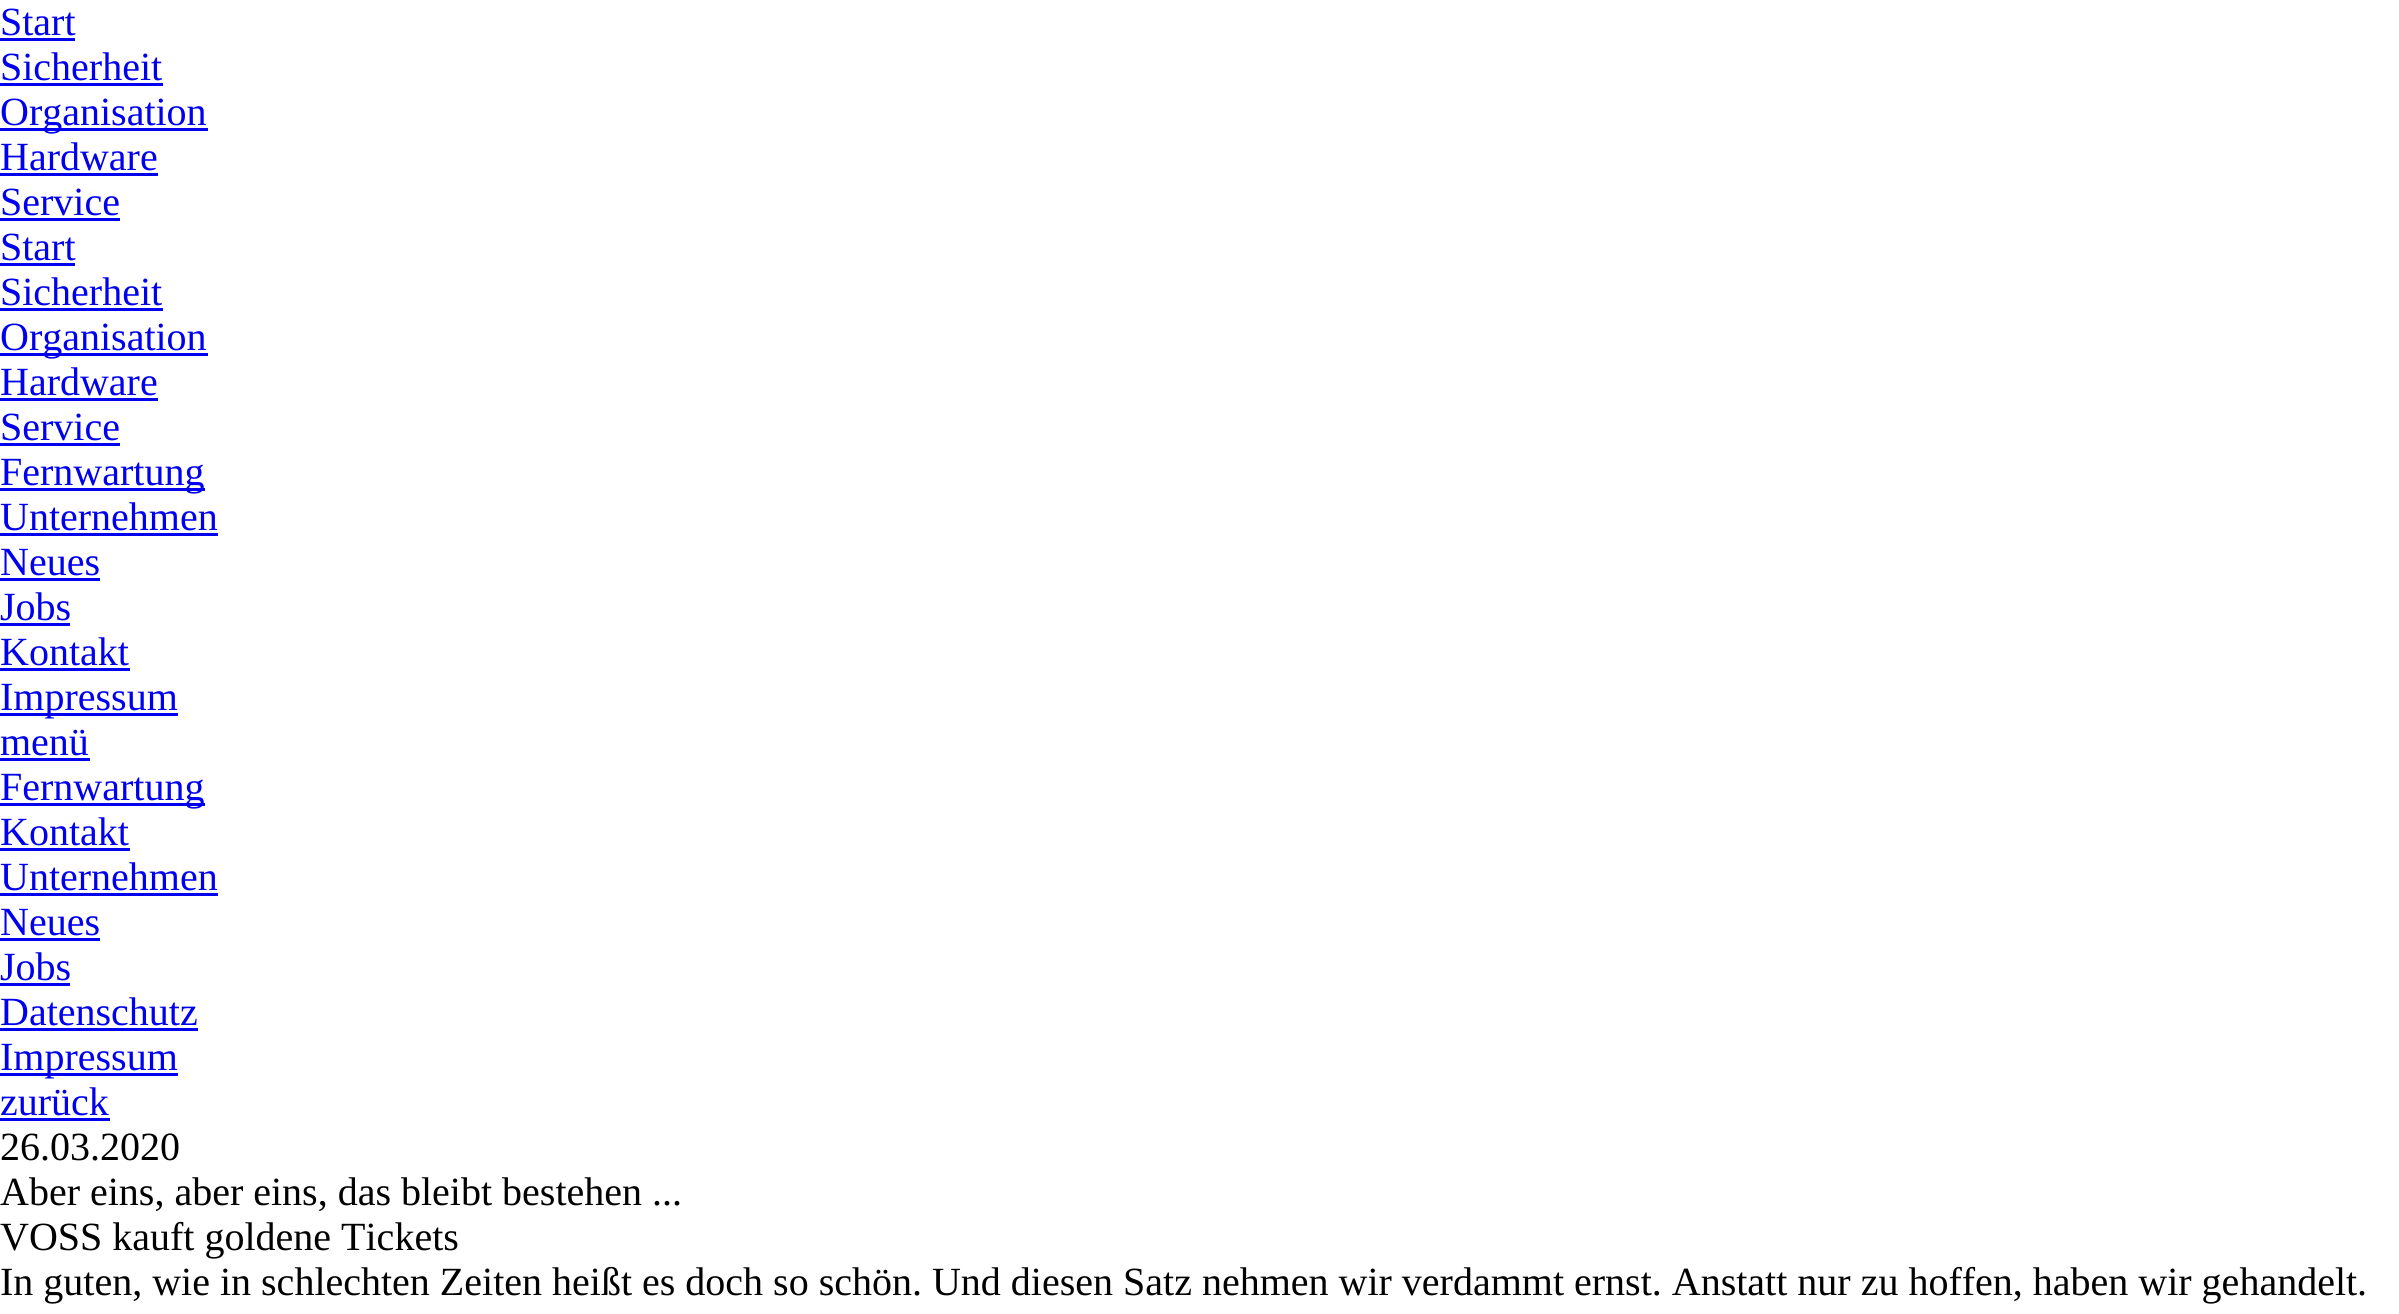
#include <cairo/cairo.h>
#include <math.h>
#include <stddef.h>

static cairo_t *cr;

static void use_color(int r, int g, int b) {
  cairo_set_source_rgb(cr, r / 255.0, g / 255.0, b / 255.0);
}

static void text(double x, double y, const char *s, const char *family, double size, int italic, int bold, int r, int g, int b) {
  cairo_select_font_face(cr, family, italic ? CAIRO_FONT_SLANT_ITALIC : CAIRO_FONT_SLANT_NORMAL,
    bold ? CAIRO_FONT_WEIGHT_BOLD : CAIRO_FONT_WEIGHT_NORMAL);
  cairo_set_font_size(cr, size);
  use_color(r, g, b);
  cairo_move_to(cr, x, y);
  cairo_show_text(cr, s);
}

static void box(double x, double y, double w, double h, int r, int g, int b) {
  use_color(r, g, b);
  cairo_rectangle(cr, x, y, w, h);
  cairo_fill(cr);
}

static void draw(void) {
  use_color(255, 255, 255);
  cairo_paint(cr);
  box(0, 38, 75, 3, 0, 0, 238);
  box(0, 83, 163, 3, 0, 0, 238);
  box(0, 128, 208, 3, 0, 0, 238);
  box(0, 173, 158, 3, 0, 0, 238);
  box(0, 218, 120, 3, 0, 0, 238);
  box(0, 263, 75, 3, 0, 0, 238);
  box(0, 308, 163, 3, 0, 0, 238);
  box(0, 353, 208, 3, 0, 0, 238);
  box(0, 398, 158, 3, 0, 0, 238);
  box(0, 443, 120, 3, 0, 0, 238);
  box(0, 488, 205, 3, 0, 0, 238);
  box(0, 533, 218, 3, 0, 0, 238);
  box(0, 578, 100, 3, 0, 0, 238);
  box(0, 623, 70, 3, 0, 0, 238);
  box(0, 668, 130, 3, 0, 0, 238);
  box(0, 713, 178, 3, 0, 0, 238);
  box(0, 758, 90, 3, 0, 0, 238);
  box(0, 803, 205, 3, 0, 0, 238);
  box(0, 848, 130, 3, 0, 0, 238);
  box(0, 893, 218, 3, 0, 0, 238);
  box(0, 938, 100, 3, 0, 0, 238);
  box(0, 983, 70, 3, 0, 0, 238);
  box(0, 1028, 198, 3, 0, 0, 238);
  box(0, 1073, 178, 3, 0, 0, 238);
  box(0, 1118, 110, 3, 0, 0, 238);
  text(0, 35, "Start", "Liberation Serif", 40, 0, 0, 0, 0, 238);
  text(0, 80, "Sicherheit", "Liberation Serif", 40, 0, 0, 0, 0, 238);
  text(0, 125, "Organisation", "Liberation Serif", 40, 0, 0, 0, 0, 238);
  text(0, 170, "Hardware", "Liberation Serif", 40, 0, 0, 0, 0, 238);
  text(0, 215, "Service", "Liberation Serif", 40, 0, 0, 0, 0, 238);
  text(0, 260, "Start", "Liberation Serif", 40, 0, 0, 0, 0, 238);
  text(0, 305, "Sicherheit", "Liberation Serif", 40, 0, 0, 0, 0, 238);
  text(0, 350, "Organisation", "Liberation Serif", 40, 0, 0, 0, 0, 238);
  text(0, 395, "Hardware", "Liberation Serif", 40, 0, 0, 0, 0, 238);
  text(0, 440, "Service", "Liberation Serif", 40, 0, 0, 0, 0, 238);
  text(0, 485, "Fernwartung", "Liberation Serif", 40, 0, 0, 0, 0, 238);
  text(0, 530, "Unternehmen", "Liberation Serif", 40, 0, 0, 0, 0, 238);
  text(0, 575, "Neues", "Liberation Serif", 40, 0, 0, 0, 0, 238);
  text(0, 620, "Jobs", "Liberation Serif", 40, 0, 0, 0, 0, 238);
  text(0, 665, "Kontakt", "Liberation Serif", 40, 0, 0, 0, 0, 238);
  text(0, 710, "Impressum", "Liberation Serif", 40, 0, 0, 0, 0, 238);
  text(0, 755, "menü", "Liberation Serif", 40, 0, 0, 0, 0, 238);
  text(0, 800, "Fernwartung", "Liberation Serif", 40, 0, 0, 0, 0, 238);
  text(0, 845, "Kontakt", "Liberation Serif", 40, 0, 0, 0, 0, 238);
  text(0, 890, "Unternehmen", "Liberation Serif", 40, 0, 0, 0, 0, 238);
  text(0, 935, "Neues", "Liberation Serif", 40, 0, 0, 0, 0, 238);
  text(0, 980, "Jobs", "Liberation Serif", 40, 0, 0, 0, 0, 238);
  text(0, 1025, "Datenschutz", "Liberation Serif", 40, 0, 0, 0, 0, 238);
  text(0, 1070, "Impressum", "Liberation Serif", 40, 0, 0, 0, 0, 238);
  text(0, 1115, "zurück", "Liberation Serif", 40, 0, 0, 0, 0, 238);
  text(0, 1160, "26.03.2020", "Liberation Serif", 40, 0, 0, 0, 0, 0);
  text(0, 1205, "Aber eins, aber eins, das bleibt bestehen ...", "Liberation Serif", 40, 0, 0, 0, 0, 0);
  text(0, 1250, "VOSS kauft goldene Tickets", "Liberation Serif", 40, 0, 0, 0, 0, 0);
  text(0, 1295, "In guten, wie in schlechten Zeiten heißt es doch so schön. Und diesen Satz nehmen wir verdammt ernst. Anstatt nur zu hoffen, haben wir gehandelt.", "Liberation Serif", 40, 0, 0, 0, 0, 0);
}

int main(void) {
  cairo_surface_t *surface = cairo_image_surface_create(CAIRO_FORMAT_RGB24, 2399, 1314);
  cr = cairo_create(surface);
  cairo_font_options_t *options = cairo_font_options_create();
  cairo_font_options_set_hint_metrics(options, CAIRO_HINT_METRICS_OFF);
  cairo_font_options_set_hint_style(options, CAIRO_HINT_STYLE_NONE);
  cairo_set_font_options(cr, options);
  cairo_set_miter_limit(cr, 4);
  draw();
  cairo_surface_write_to_png(surface, "out.png");
  cairo_font_options_destroy(options);
  cairo_destroy(cr);
  cairo_surface_destroy(surface);
  return 0;
}
